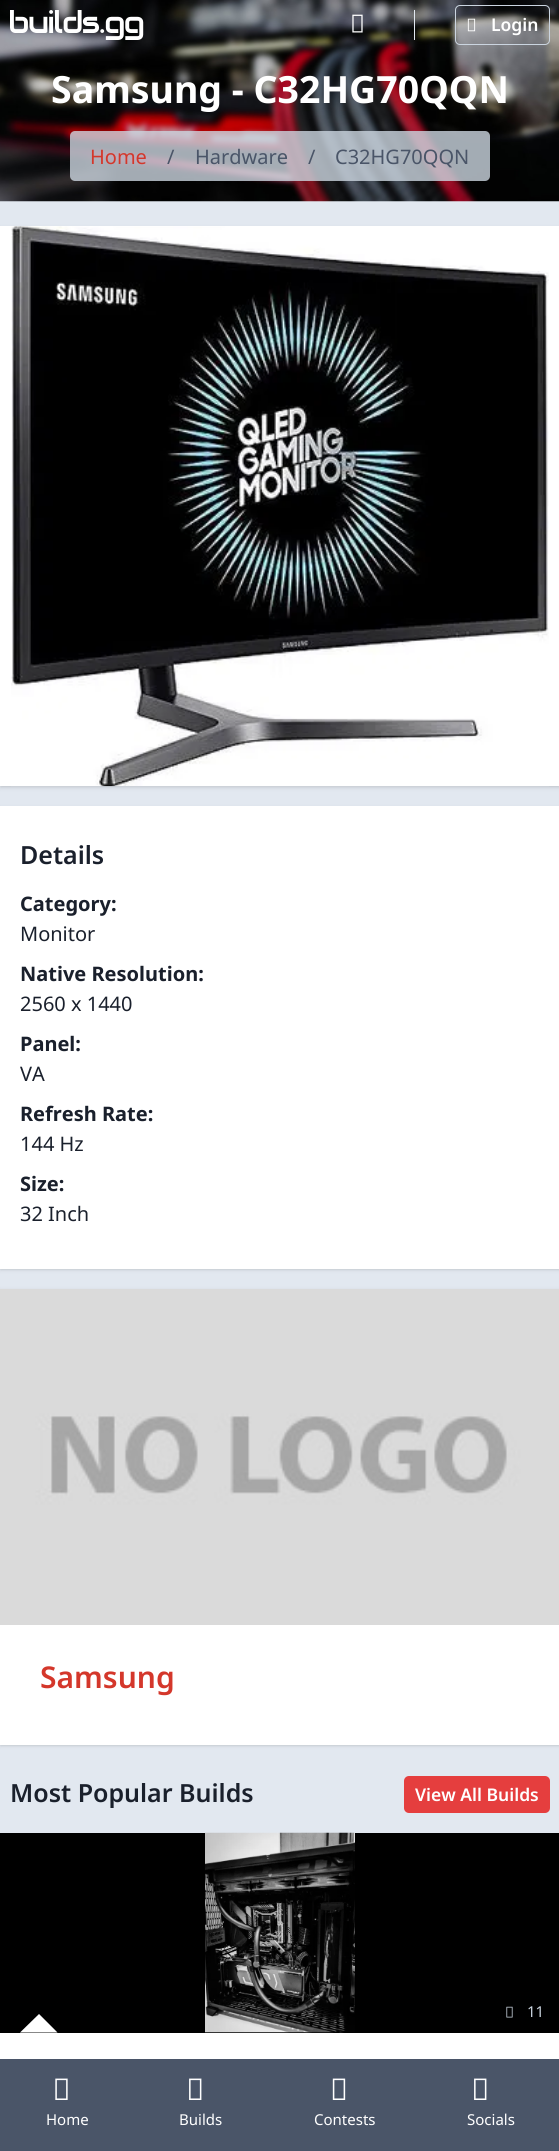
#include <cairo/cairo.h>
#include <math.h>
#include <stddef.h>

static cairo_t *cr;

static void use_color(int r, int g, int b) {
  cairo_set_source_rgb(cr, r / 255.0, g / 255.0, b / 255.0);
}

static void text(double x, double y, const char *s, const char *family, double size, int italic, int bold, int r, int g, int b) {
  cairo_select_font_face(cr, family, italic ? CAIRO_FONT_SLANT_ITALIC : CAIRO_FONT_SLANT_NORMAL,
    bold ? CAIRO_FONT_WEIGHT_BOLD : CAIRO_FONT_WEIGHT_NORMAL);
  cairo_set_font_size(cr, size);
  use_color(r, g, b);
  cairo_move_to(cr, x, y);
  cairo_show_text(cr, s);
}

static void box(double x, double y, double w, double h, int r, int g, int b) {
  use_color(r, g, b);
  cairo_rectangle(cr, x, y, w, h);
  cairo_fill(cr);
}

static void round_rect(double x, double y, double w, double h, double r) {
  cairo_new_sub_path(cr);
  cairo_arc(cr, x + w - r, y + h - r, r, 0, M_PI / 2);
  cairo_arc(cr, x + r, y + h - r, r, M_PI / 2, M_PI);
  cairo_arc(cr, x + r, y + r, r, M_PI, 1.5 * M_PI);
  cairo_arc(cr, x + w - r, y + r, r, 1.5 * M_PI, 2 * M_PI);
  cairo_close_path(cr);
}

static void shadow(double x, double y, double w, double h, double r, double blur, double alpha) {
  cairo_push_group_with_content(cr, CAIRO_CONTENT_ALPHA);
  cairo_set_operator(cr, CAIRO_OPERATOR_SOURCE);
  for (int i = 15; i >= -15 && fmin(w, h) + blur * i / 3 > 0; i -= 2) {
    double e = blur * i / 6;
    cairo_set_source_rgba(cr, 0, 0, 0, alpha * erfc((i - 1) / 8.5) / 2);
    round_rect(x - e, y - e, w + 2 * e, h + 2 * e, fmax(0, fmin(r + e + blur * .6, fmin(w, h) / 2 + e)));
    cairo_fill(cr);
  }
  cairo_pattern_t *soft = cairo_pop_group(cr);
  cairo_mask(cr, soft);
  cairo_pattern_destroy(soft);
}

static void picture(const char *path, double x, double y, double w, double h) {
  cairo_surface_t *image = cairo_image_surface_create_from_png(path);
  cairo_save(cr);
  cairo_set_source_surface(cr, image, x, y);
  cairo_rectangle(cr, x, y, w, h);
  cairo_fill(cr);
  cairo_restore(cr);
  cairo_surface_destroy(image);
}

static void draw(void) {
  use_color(226, 232, 240);
  cairo_paint(cr);
  picture("img_07.png", 0, 0, 559, 202);
  picture("img_01.png", 10, 10, 134, 30);
  box(414, 10, 1, 30, 226, 232, 240);
  picture("img_02.png", 352, 14, 11, 19);
  round_rect(455.5, 5.5, 94, 39, 4.5);
  use_color(203, 213, 224);
  cairo_set_line_width(cr, 1);
  cairo_stroke(cr);
  picture("img_03.png", 467, 18, 9, 14);
  box(0, 2059, 559, 92, 74, 85, 104);
  picture("img_04.png", 55, 2078, 13, 22);
  picture("img_05.png", 189, 2078, 13, 22);
  picture("img_06.png", 332, 2078, 14, 22);
  picture("img_05.png", 474, 2078, 13, 22);
  cairo_set_source_rgba(cr, 0.796, 0.835, 0.878, 0.8);
  round_rect(70, 131, 420, 50, 5);
  cairo_fill(cr);
  use_color(0, 0, 0);
  shadow(1, 229, 558, 557, 0, 1, 0.1);
  shadow(0, 228, 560, 560, 0, 2, 0.1);
  box(0, 226, 559, 560, 255, 255, 255);
  picture("img_08.png", 11, 226, 538, 561);
  use_color(0, 0, 0);
  shadow(1, 809, 558, 460, 0, 1, 0.1);
  shadow(0, 808, 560, 462, 0, 2, 0.1);
  box(0, 806, 559, 463, 255, 255, 255);
  use_color(0, 0, 0);
  shadow(1, 1291, 558, 454, 0, 1, 0.1);
  shadow(0, 1290, 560, 456, 0, 2, 0.1);
  box(0, 1625, 559, 120, 255, 255, 255);
  picture("img_09.png", 0, 1289, 559, 336);
  use_color(229, 62, 62);
  round_rect(404, 1776, 146, 37, 5);
  cairo_fill(cr);
  box(0, 2033, 559, 26, 255, 255, 255);
  box(0, 1833, 559, 200, 0, 0, 0);
  use_color(255, 255, 255);
  cairo_new_path(cr);
  cairo_move_to(cr, 57.5, 2032.5);
  cairo_line_to(cr, 20, 2032.5);
  cairo_line_to(cr, 39, 2014);
  cairo_close_path(cr);
  cairo_fill(cr);
  picture("img_10.png", 205, 1832, 150, 201);
  picture("img_11.png", 506, 2006, 7, 12);
  text(491, 31, "Login", "Noto Sans SemiBold", 17.5, 0, 0, 255, 255, 255);
  text(46, 2125, "Home", "Noto Sans", 15, 0, 0, 255, 255, 255);
  text(179, 2125, "Builds", "Noto Sans", 15, 0, 0, 255, 255, 255);
  text(314, 2125, "Contests", "Noto Sans", 15, 0, 0, 255, 255, 255);
  text(467, 2125, "Socials", "Noto Sans", 15, 0, 0, 255, 255, 255);
  text(51, 103, "Samsung - C32HG70QQN", "Noto Sans", 37.5, 0, 1, 255, 255, 255);
  text(90, 164, "Home", "Noto Sans", 20, 0, 0, 212, 55, 43);
  text(167, 164, "/", "Noto Sans", 20, 0, 0, 74, 85, 104);
  text(195, 164, "Hardware", "Noto Sans", 20, 0, 0, 74, 85, 104);
  text(308, 164, "/", "Noto Sans", 20, 0, 0, 74, 85, 104);
  text(335, 164, "C32HG70QQN", "Noto Sans", 20, 0, 0, 74, 85, 104);
  text(20, 864, "Details", "Noto Sans SemiBold", 25, 0, 0, 26, 32, 44);
  text(20, 911, "Category:", "Noto Sans", 20, 0, 1, 26, 32, 44);
  text(20, 941, "Monitor", "Noto Sans", 20, 0, 0, 26, 32, 44);
  text(20, 981, "Native Resolution:", "Noto Sans", 20, 0, 1, 26, 32, 44);
  text(20, 1011, "2560 x 1440", "Noto Sans", 20, 0, 0, 26, 32, 44);
  text(20, 1051, "Panel:", "Noto Sans", 20, 0, 1, 26, 32, 44);
  text(20, 1081, "VA", "Noto Sans", 20, 0, 0, 26, 32, 44);
  text(20, 1121, "Refresh Rate:", "Noto Sans", 20, 0, 1, 26, 32, 44);
  text(20, 1151, "144 Hz", "Noto Sans", 20, 0, 0, 26, 32, 44);
  text(20, 1191, "Size:", "Noto Sans", 20, 0, 1, 26, 32, 44);
  text(20, 1221, "32 Inch", "Noto Sans", 20, 0, 0, 26, 32, 44);
  text(40, 1688, "Samsung", "Noto Sans SemiBold", 30, 0, 0, 212, 55, 43);
  text(10, 1802, "Most Popular Builds", "Noto Sans SemiBold", 25, 0, 0, 26, 32, 44);
  text(415, 1801, "View All Builds", "Noto Sans SemiBold", 17.5, 0, 0, 255, 255, 255);
  text(527, 2017, "11", "Noto Sans", 15, 0, 0, 203, 213, 224);
}

int main(void) {
  cairo_surface_t *surface = cairo_image_surface_create(CAIRO_FORMAT_RGB24, 559, 2151);
  cr = cairo_create(surface);
  cairo_font_options_t *options = cairo_font_options_create();
  cairo_font_options_set_hint_metrics(options, CAIRO_HINT_METRICS_OFF);
  cairo_font_options_set_hint_style(options, CAIRO_HINT_STYLE_NONE);
  cairo_set_font_options(cr, options);
  cairo_set_miter_limit(cr, 4);
  draw();
  cairo_surface_write_to_png(surface, "out.png");
  cairo_font_options_destroy(options);
  cairo_destroy(cr);
  cairo_surface_destroy(surface);
  return 0;
}
